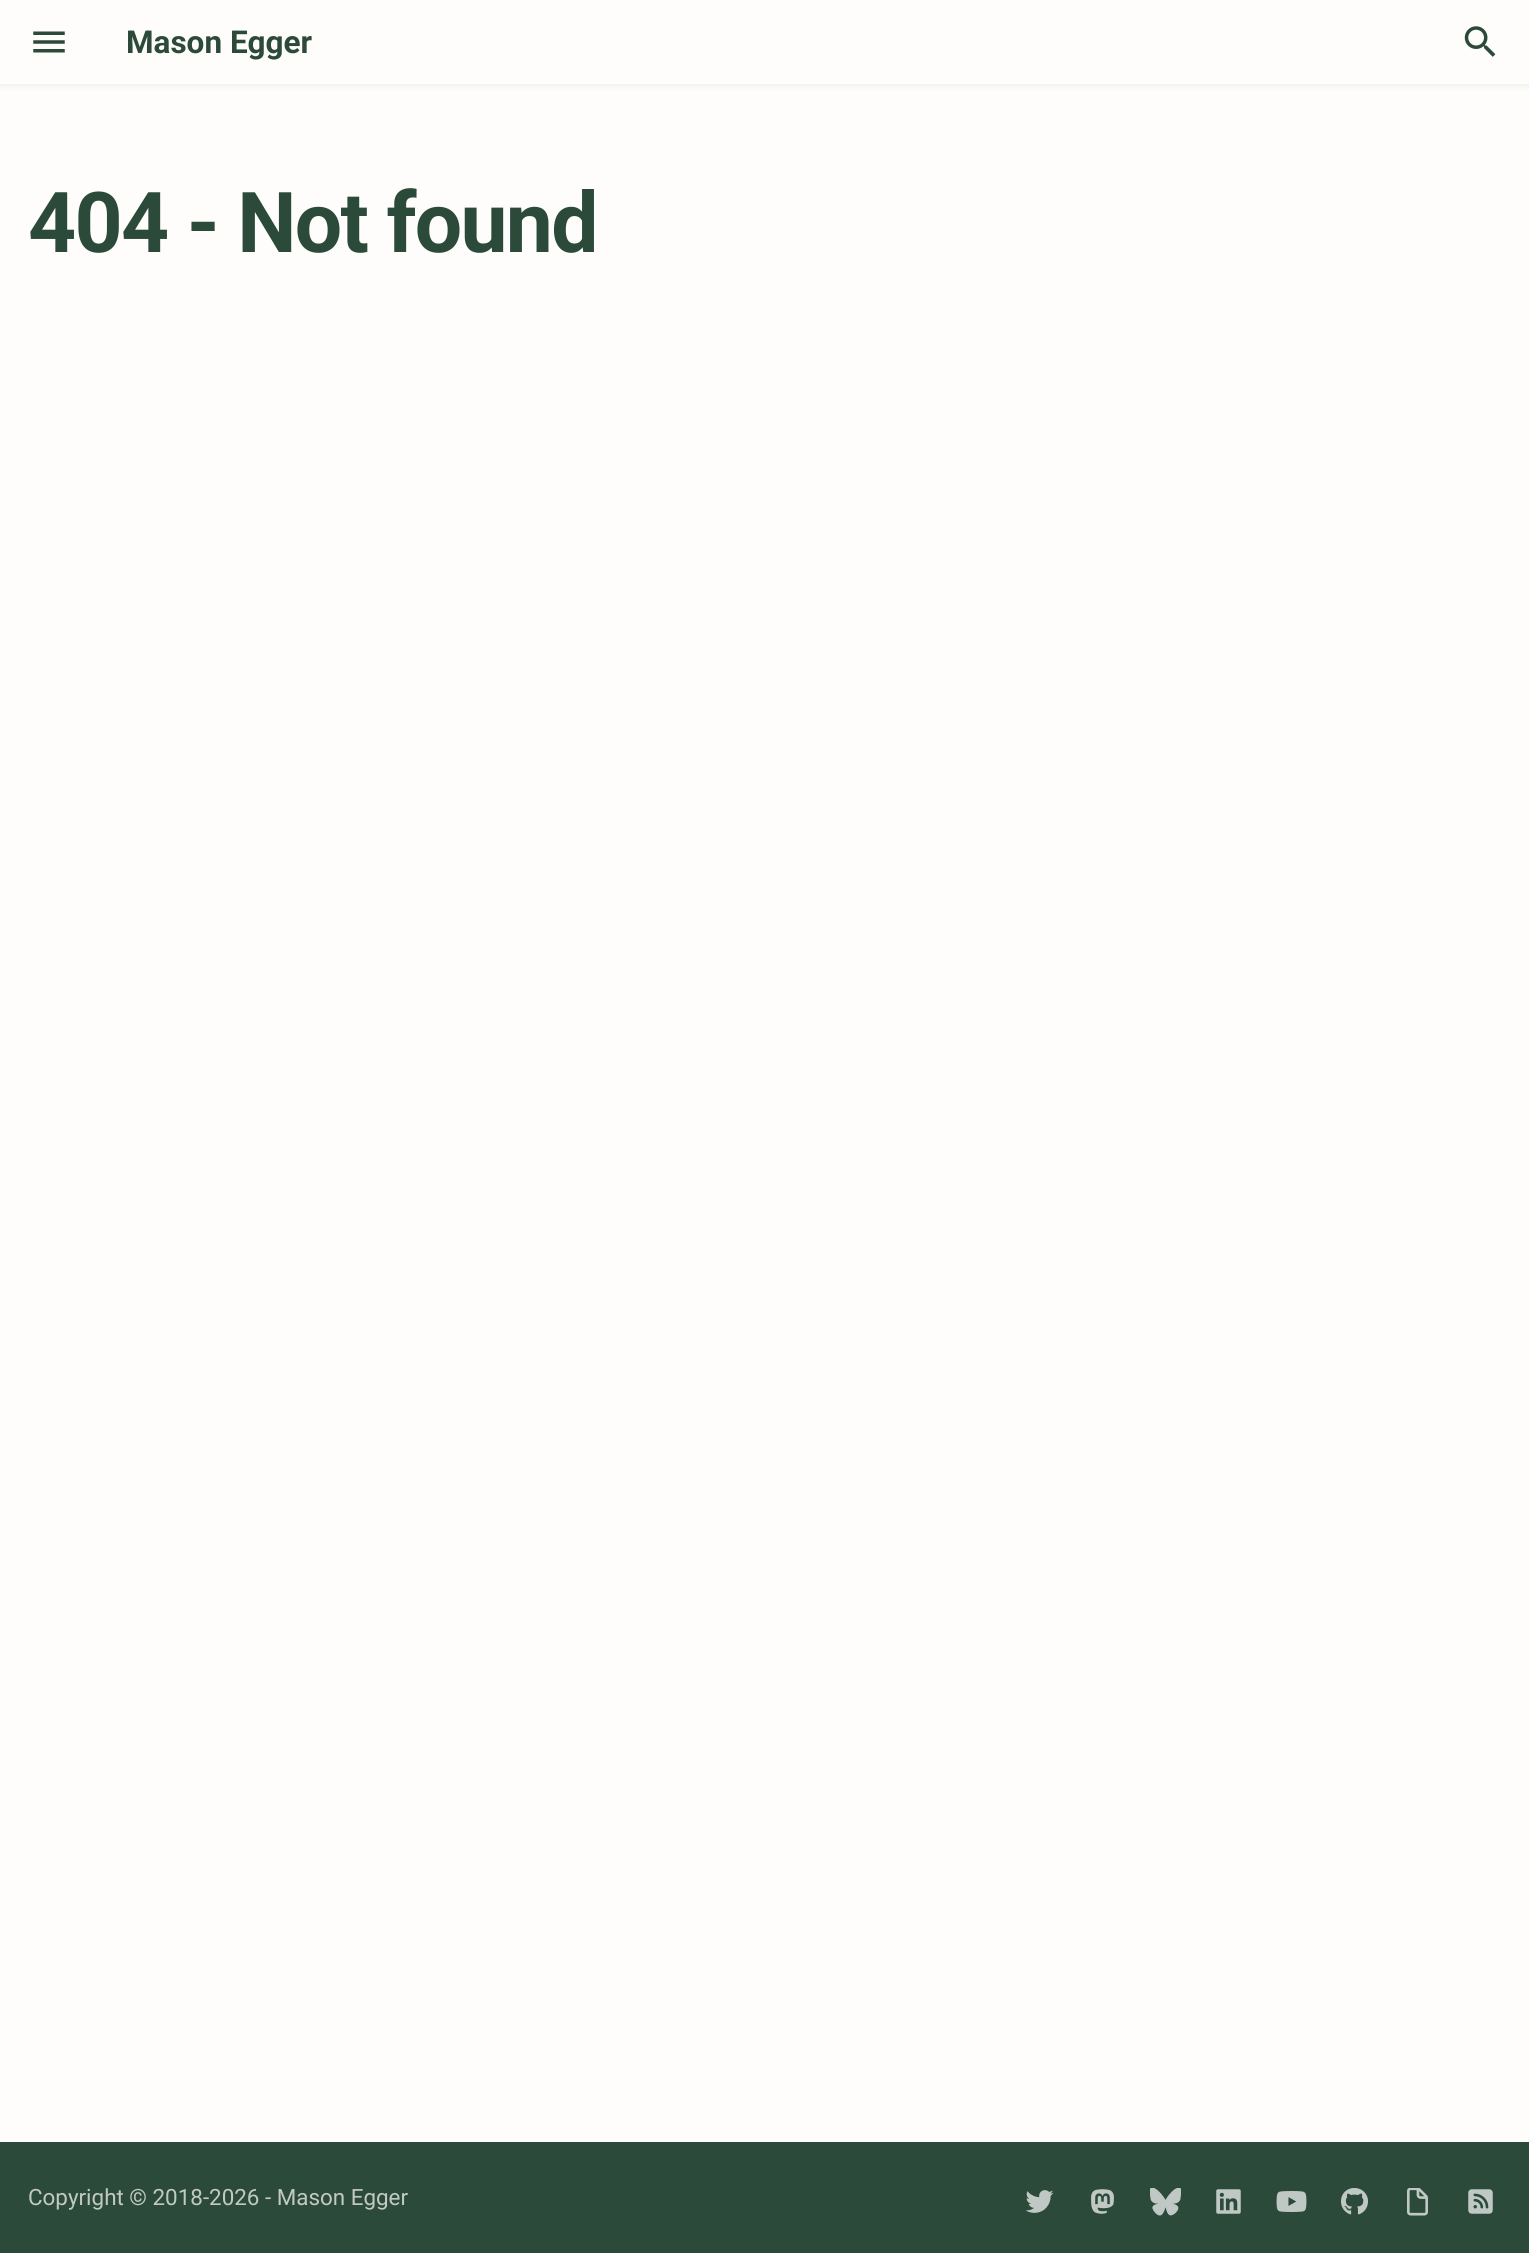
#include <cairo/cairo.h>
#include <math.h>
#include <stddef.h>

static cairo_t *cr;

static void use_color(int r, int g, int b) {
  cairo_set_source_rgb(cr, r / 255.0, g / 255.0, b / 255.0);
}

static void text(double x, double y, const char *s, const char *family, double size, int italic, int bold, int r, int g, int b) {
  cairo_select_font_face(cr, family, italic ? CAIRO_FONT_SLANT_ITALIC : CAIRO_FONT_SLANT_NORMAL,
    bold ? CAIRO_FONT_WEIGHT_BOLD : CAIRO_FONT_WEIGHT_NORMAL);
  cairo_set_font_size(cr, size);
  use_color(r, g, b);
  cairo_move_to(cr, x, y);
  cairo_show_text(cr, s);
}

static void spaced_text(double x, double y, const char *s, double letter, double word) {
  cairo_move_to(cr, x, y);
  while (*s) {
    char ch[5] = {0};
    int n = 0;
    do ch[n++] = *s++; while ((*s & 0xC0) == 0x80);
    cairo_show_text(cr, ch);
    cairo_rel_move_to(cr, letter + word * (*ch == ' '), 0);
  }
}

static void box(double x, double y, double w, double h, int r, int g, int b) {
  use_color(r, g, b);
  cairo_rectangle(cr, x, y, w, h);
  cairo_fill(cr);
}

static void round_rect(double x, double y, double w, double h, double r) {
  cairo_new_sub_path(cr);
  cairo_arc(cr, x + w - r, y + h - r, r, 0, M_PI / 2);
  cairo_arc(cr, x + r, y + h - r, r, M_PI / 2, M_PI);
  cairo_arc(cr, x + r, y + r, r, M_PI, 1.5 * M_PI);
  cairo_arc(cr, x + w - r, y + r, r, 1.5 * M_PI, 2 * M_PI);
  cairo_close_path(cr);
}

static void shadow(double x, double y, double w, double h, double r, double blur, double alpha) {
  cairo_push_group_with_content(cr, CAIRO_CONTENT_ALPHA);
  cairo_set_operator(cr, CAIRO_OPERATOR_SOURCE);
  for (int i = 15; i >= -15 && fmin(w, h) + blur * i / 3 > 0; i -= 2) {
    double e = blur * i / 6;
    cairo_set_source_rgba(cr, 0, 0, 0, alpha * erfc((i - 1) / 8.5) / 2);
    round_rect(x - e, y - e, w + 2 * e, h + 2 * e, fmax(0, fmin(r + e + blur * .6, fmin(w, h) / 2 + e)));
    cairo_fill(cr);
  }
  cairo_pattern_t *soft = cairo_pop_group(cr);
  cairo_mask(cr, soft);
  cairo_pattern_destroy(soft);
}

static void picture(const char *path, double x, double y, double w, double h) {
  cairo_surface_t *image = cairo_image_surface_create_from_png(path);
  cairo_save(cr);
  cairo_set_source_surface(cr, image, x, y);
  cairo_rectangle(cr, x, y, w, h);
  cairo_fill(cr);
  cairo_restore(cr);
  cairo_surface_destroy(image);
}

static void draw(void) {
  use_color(254, 253, 251);
  cairo_paint(cr);
  use_color(44, 74, 58);
  shadow(0, 2, 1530, 86, 0, 2.5, 0.05);
  box(0, 0, 1529, 84, 254, 253, 251);
  box(0, 84, 1529, 2, 243, 245, 241);
  picture("img_01.png", 33, 31, 32, 22);
  picture("img_02.png", 1464, 26, 32, 31);
  box(0, 2142, 1529, 111, 44, 74, 58);
  picture("img_03.png", 1026, 2190, 28, 23);
  picture("img_04.png", 1091, 2189, 23, 25);
  picture("img_05.png", 1150, 2188, 31, 28);
  picture("img_06.png", 1216, 2189, 25, 25);
  picture("img_07.png", 1276, 2191, 31, 21);
  picture("img_08.png", 1341, 2188, 28, 27);
  picture("img_09.png", 1407, 2188, 21, 28);
  picture("img_10.png", 1468, 2189, 25, 25);
  text(126, 53, "Mason Egger", "Roboto", 31.5, 0, 1, 44, 74, 58);
  cairo_set_font_size(cr, 84);
  spaced_text(28, 252, "404 - Not found", -1.7, 0);
  text(28, 2205, "Copyright © 2018-2026 - Mason Egger", "Roboto", 22.4, 0, 0, 192, 201, 196);
}

int main(void) {
  cairo_surface_t *surface = cairo_image_surface_create(CAIRO_FORMAT_RGB24, 1529, 2253);
  cr = cairo_create(surface);
  cairo_font_options_t *options = cairo_font_options_create();
  cairo_font_options_set_hint_metrics(options, CAIRO_HINT_METRICS_OFF);
  cairo_font_options_set_hint_style(options, CAIRO_HINT_STYLE_NONE);
  cairo_set_font_options(cr, options);
  cairo_set_miter_limit(cr, 4);
  draw();
  cairo_surface_write_to_png(surface, "out.png");
  cairo_font_options_destroy(options);
  cairo_destroy(cr);
  cairo_surface_destroy(surface);
  return 0;
}
